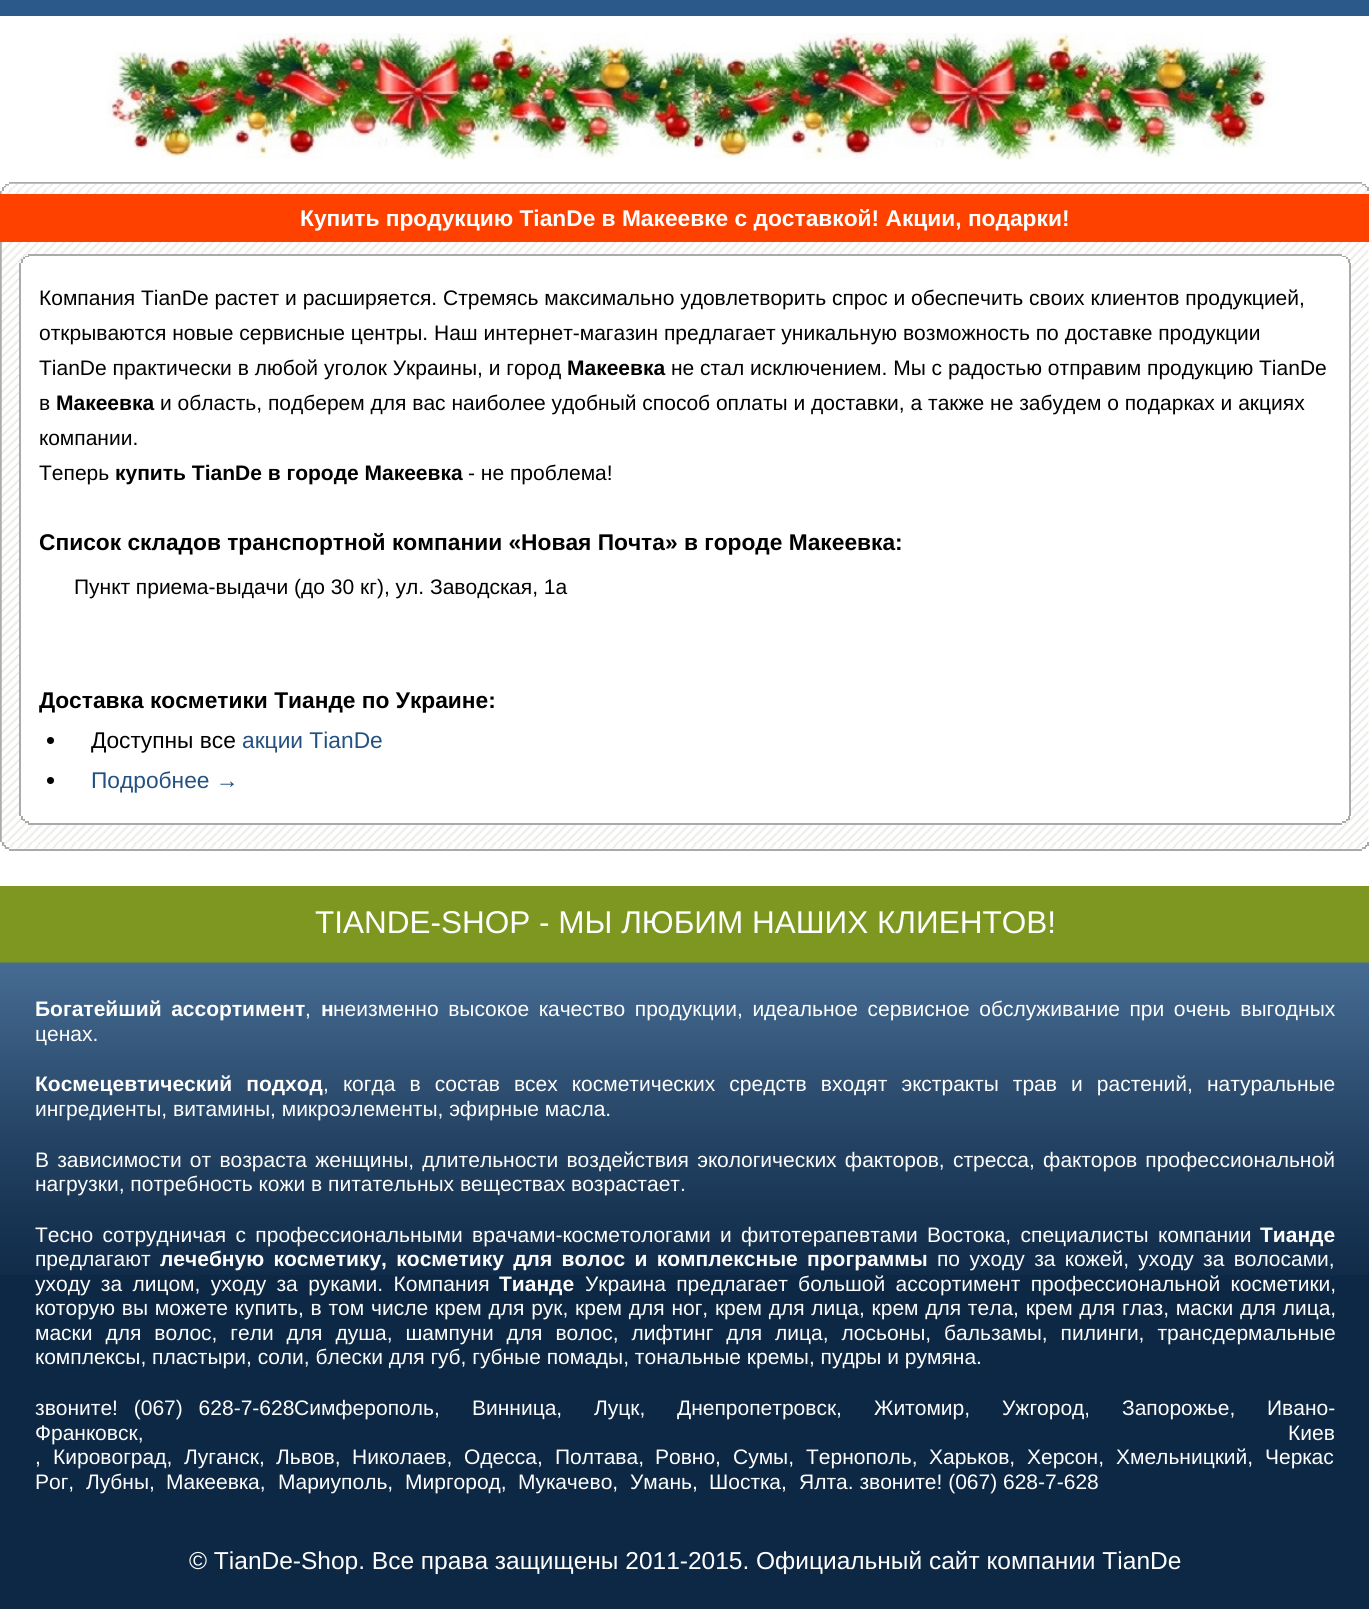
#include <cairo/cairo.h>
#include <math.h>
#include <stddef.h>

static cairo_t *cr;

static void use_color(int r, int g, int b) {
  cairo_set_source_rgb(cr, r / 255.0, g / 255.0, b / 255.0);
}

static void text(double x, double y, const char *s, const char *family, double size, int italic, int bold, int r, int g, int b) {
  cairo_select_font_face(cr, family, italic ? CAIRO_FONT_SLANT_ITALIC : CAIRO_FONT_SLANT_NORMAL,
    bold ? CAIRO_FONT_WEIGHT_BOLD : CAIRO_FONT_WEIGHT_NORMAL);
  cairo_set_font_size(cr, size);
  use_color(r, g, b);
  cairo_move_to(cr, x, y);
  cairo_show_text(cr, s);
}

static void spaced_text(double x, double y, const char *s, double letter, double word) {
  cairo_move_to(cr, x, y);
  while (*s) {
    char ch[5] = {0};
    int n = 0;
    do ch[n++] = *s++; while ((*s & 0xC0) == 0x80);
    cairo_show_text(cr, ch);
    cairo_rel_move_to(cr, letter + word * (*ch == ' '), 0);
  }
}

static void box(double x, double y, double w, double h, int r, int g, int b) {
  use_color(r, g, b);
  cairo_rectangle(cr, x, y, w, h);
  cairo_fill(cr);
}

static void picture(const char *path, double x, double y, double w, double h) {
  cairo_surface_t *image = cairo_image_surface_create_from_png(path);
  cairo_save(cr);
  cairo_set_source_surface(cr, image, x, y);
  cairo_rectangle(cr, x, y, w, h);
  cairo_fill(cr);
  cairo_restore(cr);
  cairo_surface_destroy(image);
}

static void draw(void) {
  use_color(255, 255, 255);
  cairo_paint(cr);
  box(0, 0, 1369, 16, 43, 89, 137);
  picture("img_01.png", 106, 33, 1167, 127);
  box(9, 182, 1353, 2, 171, 170, 170);
  picture("img_02.png", 5, 183, 1360, 3);
  box(1362, 184, 4, 2, 171, 170, 170);
  box(5, 184, 4, 2, 171, 170, 170);
  picture("img_03.png", 4, 185, 1362, 3);
  box(1365, 186, 2, 2, 171, 170, 170);
  box(4, 186, 2, 2, 171, 170, 170);
  box(0, 191, 2, 651, 171, 170, 170);
  picture("img_05.png", 1, 190, 1368, 652);
  picture("img_04.png", 1, 187, 1366, 4);
  box(1367, 187, 2, 4, 171, 170, 170);
  box(2, 187, 2, 4, 171, 170, 170);
  box(0, 194, 1369, 48, 255, 65, 0);
  box(28, 254, 1314, 2, 171, 170, 170);
  box(25, 256, 1321, 1, 255, 255, 255);
  box(1342, 256, 4, 1, 171, 170, 170);
  box(25, 256, 4, 1, 171, 170, 170);
  box(23, 257, 1325, 2, 255, 255, 255);
  box(1346, 257, 2, 2, 171, 170, 170);
  box(23, 257, 2, 2, 171, 170, 170);
  box(21, 259, 1328, 560, 255, 255, 255);
  box(1348, 259, 2, 4, 171, 170, 170);
  box(21, 259, 2, 4, 171, 170, 170);
  box(1349, 263, 2, 553, 171, 170, 170);
  box(19, 263, 2, 553, 171, 170, 170);
  use_color(0, 0, 0);
  cairo_arc(cr, 50.5, 740.5, 3.5, 0, 2 * M_PI);
  cairo_fill(cr);
  cairo_arc(cr, 50.5, 780.5, 3.5, 0, 2 * M_PI);
  cairo_fill(cr);
  box(1348, 816, 2, 4, 171, 170, 170);
  box(21, 816, 2, 4, 171, 170, 170);
  box(23, 819, 1325, 2, 255, 255, 255);
  box(1346, 819, 2, 2, 171, 170, 170);
  box(23, 819, 2, 2, 171, 170, 170);
  box(25, 821, 1321, 2, 255, 255, 255);
  box(1342, 821, 4, 2, 171, 170, 170);
  box(25, 821, 4, 2, 171, 170, 170);
  box(28, 823, 1314, 2, 171, 170, 170);
  picture("img_06.png", 1, 841, 1368, 5);
  box(1367, 842, 2, 4, 171, 170, 170);
  box(2, 842, 2, 4, 171, 170, 170);
  picture("img_07.png", 3, 845, 1362, 2);
  box(1365, 845, 2, 2, 171, 170, 170);
  box(4, 845, 2, 2, 171, 170, 170);
  picture("img_08.png", 9, 847, 1353, 2);
  box(1362, 847, 4, 2, 171, 170, 170);
  box(5, 847, 4, 2, 171, 170, 170);
  box(9, 849, 1353, 2, 171, 170, 170);
  box(0, 886, 1369, 77, 125, 151, 32);
  box(0, 1275, 1369, 334, 13, 40, 69);
  picture("img_09.png", 0, 962, 1369, 313);
  text(300, 226, "Купить продукцию TianDe в Макеевке с доставкой! Акции, подарки!", "Liberation Sans", 22.75, 0, 1, 255, 255, 255);
  text(39, 305, "Компания TianDe растет и расширяется. Стремясь максимально удовлетворить спрос и обеспечить своих клиентов продукцией,", "Liberation Sans", 21, 0, 0, 0, 0, 0);
  text(39, 340, "открываются новые сервисные центры. Наш интернет-магазин предлагает уникальную возможность по доставке продукции", "Liberation Sans", 21, 0, 0, 0, 0, 0);
  text(39, 375, "TianDe практически в любой уголок Украины, и город", "Liberation Sans", 21, 0, 0, 0, 0, 0);
  text(567, 375, "Макеевка", "Liberation Sans", 21, 0, 1, 0, 0, 0);
  text(671, 375, "не стал исключением. Мы с радостью отправим продукцию TianDe", "Liberation Sans", 21, 0, 0, 0, 0, 0);
  text(39, 410, "в", "Liberation Sans", 21, 0, 0, 0, 0, 0);
  text(56, 410, "Макеевка", "Liberation Sans", 21, 0, 1, 0, 0, 0);
  text(160, 410, "и область, подберем для вас наиболее удобный способ оплаты и доставки, а также не забудем о подарках и акциях", "Liberation Sans", 21, 0, 0, 0, 0, 0);
  text(39, 445, "компании.", "Liberation Sans", 21, 0, 0, 0, 0, 0);
  text(39, 480, "Теперь", "Liberation Sans", 21, 0, 0, 0, 0, 0);
  text(115, 480, "купить TianDe в городе Макеевка", "Liberation Sans", 21, 0, 1, 0, 0, 0);
  text(468, 480, "- не проблема!", "Liberation Sans", 21, 0, 0, 0, 0, 0);
  text(39, 550, "Список складов транспортной компании «Новая Почта» в городе Макеевка:", "Liberation Sans", 22.75, 0, 1, 0, 0, 0);
  text(74, 594, "Пункт приема-выдачи (до 30 кг), ул. Заводская, 1а", "Liberation Sans", 21, 0, 0, 0, 0, 0);
  text(39, 708, "Доставка косметики Тианде по Украине:", "Liberation Sans", 22.75, 0, 1, 0, 0, 0);
  text(91, 748, "Доступны все", "Liberation Sans", 22.75, 0, 0, 0, 0, 0);
  text(242, 748, "акции TianDe", "Liberation Sans", 22.75, 0, 0, 35, 81, 131);
  text(91, 788, "Подробнее →", "Liberation Sans", 22.75, 0, 0, 35, 81, 131);
  text(315, 933, "TIANDE-SHOP - МЫ ЛЮБИМ НАШИХ КЛИЕНТОВ!", "Liberation Sans", 31.5, 0, 0, 255, 255, 255);
  cairo_select_font_face(cr, "Liberation Sans", CAIRO_FONT_SLANT_NORMAL, CAIRO_FONT_WEIGHT_BOLD);
  cairo_set_font_size(cr, 21);
  spaced_text(35, 1016, "Богатейший ассортимент", 0, 3.75);
  text(305, 1016, ",", "Liberation Sans", 21, 0, 0, 255, 255, 255);
  text(321, 1016, "н", "Liberation Sans", 21, 0, 1, 255, 255, 255);
  cairo_select_font_face(cr, "Liberation Sans", CAIRO_FONT_SLANT_NORMAL, CAIRO_FONT_WEIGHT_NORMAL);
  spaced_text(333, 1016, "неизменно высокое качество продукции, идеальное сервисное обслуживание при очень выгодных", 0, 3.75);
  text(35, 1041, "ценах.", "Liberation Sans", 21, 0, 0, 255, 255, 255);
  cairo_select_font_face(cr, "Liberation Sans", CAIRO_FONT_SLANT_NORMAL, CAIRO_FONT_WEIGHT_BOLD);
  spaced_text(35, 1091, "Космецевтический подход", 0, 8.25);
  cairo_select_font_face(cr, "Liberation Sans", CAIRO_FONT_SLANT_NORMAL, CAIRO_FONT_WEIGHT_NORMAL);
  spaced_text(323, 1091, ", когда в состав всех косметических средств входят экстракты трав и растений, натуральные", 0, 8.25);
  text(35, 1116, "ингредиенты, витамины, микроэлементы, эфирные масла.", "Liberation Sans", 21, 0, 0, 255, 255, 255);
  spaced_text(35, 1167, "В зависимости от возраста женщины, длительности воздействия экологических факторов, стресса, факторов профессиональной", 0, 2.4);
  text(35, 1191, "нагрузки, потребность кожи в питательных веществах возрастает.", "Liberation Sans", 21, 0, 0, 255, 255, 255);
  spaced_text(35, 1242, "Тесно сотрудничая с профессиональными врачами-косметологами и фитотерапевтами Востока, специалисты компании", 0, 3.5);
  text(1260, 1242, "Тианде", "Liberation Sans", 21, 0, 1, 255, 255, 255);
  text(35, 1266, "предлагают", "Liberation Sans", 21, 0, 0, 255, 255, 255);
  cairo_select_font_face(cr, "Liberation Sans", CAIRO_FONT_SLANT_NORMAL, CAIRO_FONT_WEIGHT_BOLD);
  spaced_text(160, 1266, "лечебную косметику, косметику для волос и комплексные программы", 0, 3.5);
  cairo_select_font_face(cr, "Liberation Sans", CAIRO_FONT_SLANT_NORMAL, CAIRO_FONT_WEIGHT_NORMAL);
  spaced_text(937, 1266, "по уходу за кожей, уходу за волосами,", 0, 3.5);
  spaced_text(35, 1291, "уходу за лицом, уходу за руками. Компания", 0, 4.5);
  text(499, 1291, "Тианде", "Liberation Sans", 21, 0, 1, 255, 255, 255);
  cairo_select_font_face(cr, "Liberation Sans", CAIRO_FONT_SLANT_NORMAL, CAIRO_FONT_WEIGHT_NORMAL);
  spaced_text(585, 1291, "Украина предлагает большой ассортимент профессиональной косметики,", 0, 4.5);
  spaced_text(35, 1315, "которую вы можете купить, в том числе крем для рук, крем для ног, крем для лица, крем для тела, крем для глаз, маски для лица,", 0, 0.9);
  spaced_text(35, 1340, "маски для волос, гели для душа, шампуни для волос, лифтинг для лица, лосьоны, бальзамы, пилинги, трансдермальные", 0, 7.1);
  text(35, 1364, "комплексы, пластыри, соли, блески для губ, губные помады, тональные кремы, пудры и румяна.", "Liberation Sans", 21, 0, 0, 255, 255, 255);
  spaced_text(35, 1415, "звоните! (067) 628-7-628", 0, 10);
  text(294, 1415, "Симферополь,", "Liberation Sans", 21, 0, 0, 255, 255, 255);
  text(472, 1415, "Винница,", "Liberation Sans", 21, 0, 0, 255, 255, 255);
  text(594, 1415, "Луцк,", "Liberation Sans", 21, 0, 0, 255, 255, 255);
  text(677, 1415, "Днепропетровск,", "Liberation Sans", 21, 0, 0, 255, 255, 255);
  text(874, 1415, "Житомир,", "Liberation Sans", 21, 0, 0, 255, 255, 255);
  text(1002, 1415, "Ужгород,", "Liberation Sans", 21, 0, 0, 255, 255, 255);
  text(1122, 1415, "Запорожье,", "Liberation Sans", 21, 0, 0, 255, 255, 255);
  text(1267, 1415, "Ивано-", "Liberation Sans", 21, 0, 0, 255, 255, 255);
  text(35, 1440, "Франковск,", "Liberation Sans", 21, 0, 0, 255, 255, 255);
  text(1288, 1440, "Киев", "Liberation Sans", 21, 0, 0, 255, 255, 255);
  text(35, 1464, ",", "Liberation Sans", 21, 0, 0, 255, 255, 255);
  text(53, 1464, "Кировоград,", "Liberation Sans", 21, 0, 0, 255, 255, 255);
  text(184, 1464, "Луганск,", "Liberation Sans", 21, 0, 0, 255, 255, 255);
  text(276, 1464, "Львов,", "Liberation Sans", 21, 0, 0, 255, 255, 255);
  text(352, 1464, "Николаев,", "Liberation Sans", 21, 0, 0, 255, 255, 255);
  text(464, 1464, "Одесса,", "Liberation Sans", 21, 0, 0, 255, 255, 255);
  text(555, 1464, "Полтава,", "Liberation Sans", 21, 0, 0, 255, 255, 255);
  text(655, 1464, "Ровно,", "Liberation Sans", 21, 0, 0, 255, 255, 255);
  text(733, 1464, "Сумы,", "Liberation Sans", 21, 0, 0, 255, 255, 255);
  text(806, 1464, "Тернополь,", "Liberation Sans", 21, 0, 0, 255, 255, 255);
  text(929, 1464, "Харьков,", "Liberation Sans", 21, 0, 0, 255, 255, 255);
  text(1027, 1464, "Херсон,", "Liberation Sans", 21, 0, 0, 255, 255, 255);
  text(1116, 1464, "Хмельницкий,", "Liberation Sans", 21, 0, 0, 255, 255, 255);
  text(1265, 1464, "Черкас", "Liberation Sans", 21, 0, 0, 255, 255, 255);
  text(35, 1489, "Рог,", "Liberation Sans", 21, 0, 0, 255, 255, 255);
  text(86, 1489, "Лубны,", "Liberation Sans", 21, 0, 0, 255, 255, 255);
  text(166, 1489, "Макеевка,", "Liberation Sans", 21, 0, 0, 255, 255, 255);
  text(278, 1489, "Мариуполь,", "Liberation Sans", 21, 0, 0, 255, 255, 255);
  text(405, 1489, "Миргород,", "Liberation Sans", 21, 0, 0, 255, 255, 255);
  text(518, 1489, "Мукачево,", "Liberation Sans", 21, 0, 0, 255, 255, 255);
  text(630, 1489, "Умань,", "Liberation Sans", 21, 0, 0, 255, 255, 255);
  text(709, 1489, "Шостка,", "Liberation Sans", 21, 0, 0, 255, 255, 255);
  text(799, 1489, "Ялта. звоните! (067) 628-7-628", "Liberation Sans", 21, 0, 0, 255, 255, 255);
  text(189, 1569, "© TianDe-Shop. Все права защищены 2011-2015. Официальный сайт компании TianDe", "Liberation Sans", 24.5, 0, 0, 255, 255, 255);
}

int main(void) {
  cairo_surface_t *surface = cairo_image_surface_create(CAIRO_FORMAT_RGB24, 1369, 1609);
  cr = cairo_create(surface);
  cairo_font_options_t *options = cairo_font_options_create();
  cairo_font_options_set_hint_metrics(options, CAIRO_HINT_METRICS_OFF);
  cairo_font_options_set_hint_style(options, CAIRO_HINT_STYLE_NONE);
  cairo_set_font_options(cr, options);
  cairo_set_miter_limit(cr, 4);
  draw();
  cairo_surface_write_to_png(surface, "out.png");
  cairo_font_options_destroy(options);
  cairo_destroy(cr);
  cairo_surface_destroy(surface);
  return 0;
}
